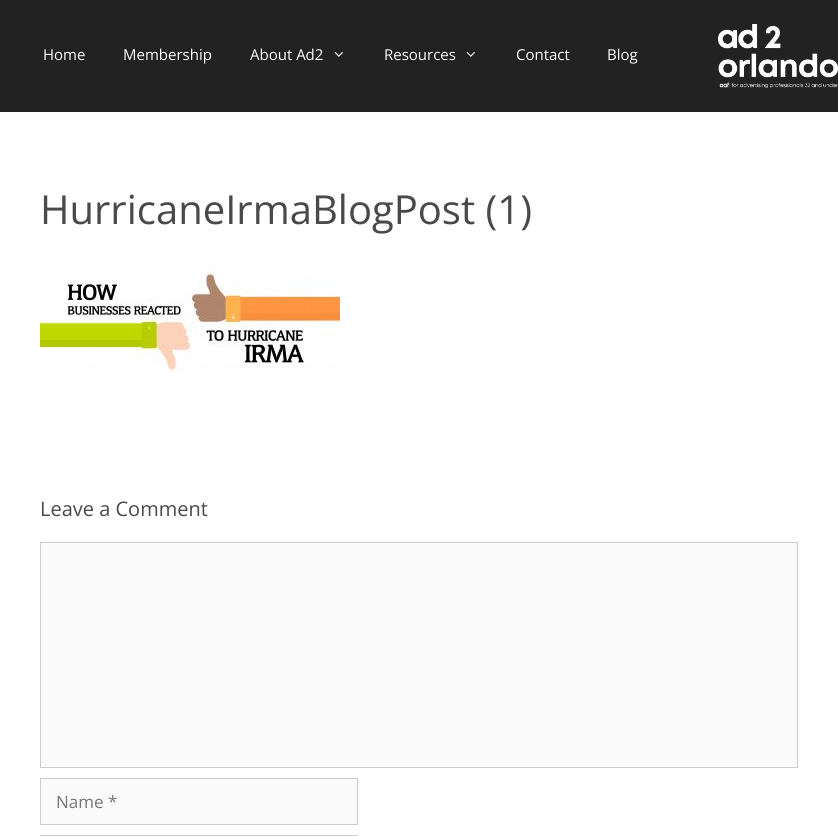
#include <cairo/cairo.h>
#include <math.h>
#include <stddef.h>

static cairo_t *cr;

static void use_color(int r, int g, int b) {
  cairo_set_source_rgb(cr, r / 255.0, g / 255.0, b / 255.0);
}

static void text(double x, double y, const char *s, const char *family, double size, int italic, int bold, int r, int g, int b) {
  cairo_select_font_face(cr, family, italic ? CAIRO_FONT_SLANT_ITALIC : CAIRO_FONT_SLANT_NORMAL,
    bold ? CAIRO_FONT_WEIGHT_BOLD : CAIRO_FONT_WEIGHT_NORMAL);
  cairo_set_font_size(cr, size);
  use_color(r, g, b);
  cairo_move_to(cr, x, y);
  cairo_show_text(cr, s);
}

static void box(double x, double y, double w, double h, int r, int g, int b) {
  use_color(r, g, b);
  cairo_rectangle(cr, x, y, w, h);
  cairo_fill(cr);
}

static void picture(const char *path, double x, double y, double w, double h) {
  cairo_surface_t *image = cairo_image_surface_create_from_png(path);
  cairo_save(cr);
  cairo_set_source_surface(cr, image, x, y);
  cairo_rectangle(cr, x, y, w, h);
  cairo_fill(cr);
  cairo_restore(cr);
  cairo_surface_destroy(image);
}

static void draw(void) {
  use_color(255, 255, 255);
  cairo_paint(cr);
  box(0, 0, 838, 112, 34, 34, 34);
  picture("img_01.png", 334, 52, 9, 5);
  picture("img_01.png", 466, 52, 9, 5);
  picture("img_02.png", 718, 24, 120, 64);
  picture("img_03.png", 40, 267, 300, 106);
  use_color(250, 250, 250);
  cairo_rectangle(cr, 40.5, 542.5, 757, 225);
  cairo_fill_preserve(cr);
  use_color(204, 204, 204);
  cairo_set_line_width(cr, 1);
  cairo_stroke(cr);
  use_color(250, 250, 250);
  cairo_rectangle(cr, 40.5, 778.5, 317, 46);
  cairo_fill_preserve(cr);
  use_color(204, 204, 204);
  cairo_stroke(cr);
  cairo_rectangle(cr, 40.5, 835.5, 317, 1);
  cairo_stroke(cr);
  text(43, 60, "Home", "Open Sans", 15, 0, 0, 255, 255, 255);
  text(123, 60, "Membership", "Open Sans", 15, 0, 0, 255, 255, 255);
  text(250, 60, "About Ad2", "Open Sans", 15, 0, 0, 255, 255, 255);
  text(384, 60, "Resources", "Open Sans", 15, 0, 0, 255, 255, 255);
  text(516, 60, "Contact", "Open Sans", 15, 0, 0, 255, 255, 255);
  text(607, 60, "Blog", "Open Sans", 15, 0, 0, 255, 255, 255);
  text(40, 224, "HurricaneIrmaBlogPost (1)", "Open Sans", 40, 0, 0, 73, 73, 73);
  text(40, 516, "Leave a Comment", "Open Sans", 20, 0, 0, 73, 73, 73);
  text(56, 808, "Name *", "Open Sans", 17, 0, 0, 117, 117, 117);
}

int main(void) {
  cairo_surface_t *surface = cairo_image_surface_create(CAIRO_FORMAT_RGB24, 838, 836);
  cr = cairo_create(surface);
  cairo_font_options_t *options = cairo_font_options_create();
  cairo_font_options_set_hint_metrics(options, CAIRO_HINT_METRICS_OFF);
  cairo_font_options_set_hint_style(options, CAIRO_HINT_STYLE_NONE);
  cairo_set_font_options(cr, options);
  cairo_set_miter_limit(cr, 4);
  draw();
  cairo_surface_write_to_png(surface, "out.png");
  cairo_font_options_destroy(options);
  cairo_destroy(cr);
  cairo_surface_destroy(surface);
  return 0;
}
